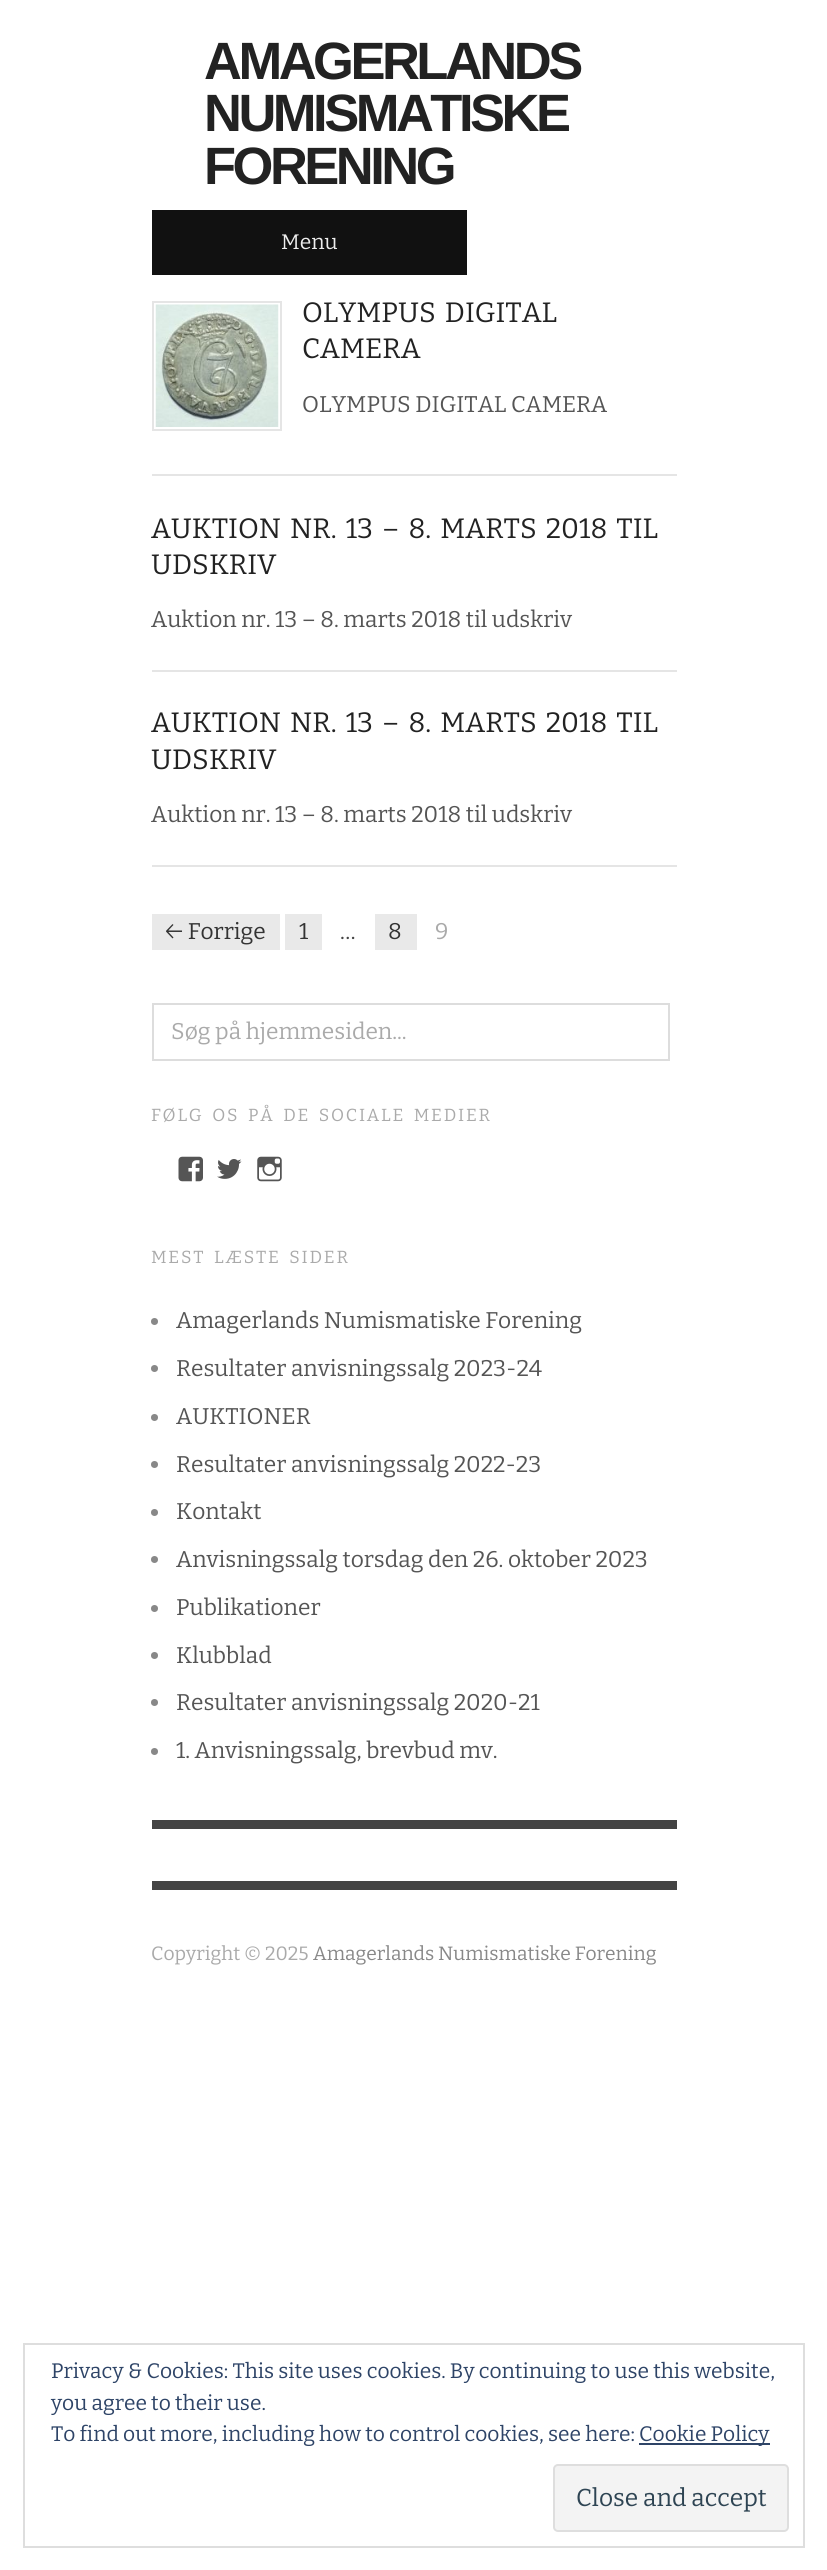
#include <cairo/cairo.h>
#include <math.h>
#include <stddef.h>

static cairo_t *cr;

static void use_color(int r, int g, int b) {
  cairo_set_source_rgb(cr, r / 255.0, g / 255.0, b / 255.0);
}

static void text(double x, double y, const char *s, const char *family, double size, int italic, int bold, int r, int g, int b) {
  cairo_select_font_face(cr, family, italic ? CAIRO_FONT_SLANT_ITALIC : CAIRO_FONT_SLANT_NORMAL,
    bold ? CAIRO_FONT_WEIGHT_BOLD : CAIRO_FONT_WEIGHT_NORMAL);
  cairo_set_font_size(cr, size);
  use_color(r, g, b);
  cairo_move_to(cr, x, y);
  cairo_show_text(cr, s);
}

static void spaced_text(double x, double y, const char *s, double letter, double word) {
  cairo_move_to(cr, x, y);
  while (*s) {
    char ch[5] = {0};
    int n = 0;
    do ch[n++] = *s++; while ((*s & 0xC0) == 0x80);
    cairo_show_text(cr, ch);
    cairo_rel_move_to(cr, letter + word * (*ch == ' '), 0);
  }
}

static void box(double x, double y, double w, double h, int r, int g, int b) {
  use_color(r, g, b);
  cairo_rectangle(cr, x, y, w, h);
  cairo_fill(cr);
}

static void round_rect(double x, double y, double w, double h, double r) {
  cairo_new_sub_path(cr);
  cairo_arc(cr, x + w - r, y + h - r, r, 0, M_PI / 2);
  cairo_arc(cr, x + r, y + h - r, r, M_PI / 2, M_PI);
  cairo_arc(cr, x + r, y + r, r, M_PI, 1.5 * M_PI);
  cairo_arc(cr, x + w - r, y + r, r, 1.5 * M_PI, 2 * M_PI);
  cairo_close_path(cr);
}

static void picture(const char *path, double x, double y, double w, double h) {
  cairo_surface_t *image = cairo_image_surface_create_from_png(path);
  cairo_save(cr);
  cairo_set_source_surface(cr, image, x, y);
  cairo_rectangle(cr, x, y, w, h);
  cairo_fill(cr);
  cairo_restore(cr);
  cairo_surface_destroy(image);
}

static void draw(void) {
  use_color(255, 255, 255);
  cairo_paint(cr);
  box(152, 210, 315, 65, 17, 17, 17);
  box(152, 474, 525, 2, 229, 229, 229);
  cairo_rectangle(cr, 153, 302, 128, 128);
  cairo_stroke(cr);
  picture("img_01.png", 155, 304, 124, 123);
  box(152, 670, 525, 2, 229, 229, 229);
  box(152, 865, 525, 2, 229, 229, 229);
  box(152, 914, 128, 36, 233, 233, 233);
  box(285, 914, 37, 36, 233, 233, 233);
  box(375, 914, 42, 36, 233, 233, 233);
  cairo_rectangle(cr, 153, 1004, 516, 56);
  use_color(221, 221, 221);
  cairo_stroke(cr);
  picture("img_02.png", 178, 1156, 25, 26);
  picture("img_03.png", 217, 1159, 25, 20);
  picture("img_04.png", 257, 1156, 25, 26);
  use_color(136, 136, 136);
  cairo_arc(cr, 154.5, 1321.5, 3.5, 0, 2 * M_PI);
  cairo_fill(cr);
  cairo_arc(cr, 154.5, 1368.5, 3.5, 0, 2 * M_PI);
  cairo_fill(cr);
  cairo_arc(cr, 154.5, 1417.5, 3.5, 0, 2 * M_PI);
  cairo_fill(cr);
  cairo_arc(cr, 154.5, 1464.5, 3.5, 0, 2 * M_PI);
  cairo_fill(cr);
  cairo_arc(cr, 154.5, 1512.5, 3.5, 0, 2 * M_PI);
  cairo_fill(cr);
  cairo_arc(cr, 154.5, 1559.5, 3.5, 0, 2 * M_PI);
  cairo_fill(cr);
  cairo_arc(cr, 154.5, 1608.5, 3.5, 0, 2 * M_PI);
  cairo_fill(cr);
  cairo_arc(cr, 154.5, 1655.5, 3.5, 0, 2 * M_PI);
  cairo_fill(cr);
  cairo_arc(cr, 154.5, 1702.5, 3.5, 0, 2 * M_PI);
  cairo_fill(cr);
  cairo_arc(cr, 154.5, 1751.5, 3.5, 0, 2 * M_PI);
  cairo_fill(cr);
  box(152, 1820, 525, 9, 68, 68, 68);
  box(152, 1881, 525, 9, 68, 68, 68);
  cairo_rectangle(cr, 24, 2344, 780, 203);
  use_color(222, 222, 222);
  cairo_stroke(cr);
  box(639, 2443, 131, 2, 46, 68, 103);
  use_color(243, 243, 243);
  round_rect(554, 2465, 234, 66, 4);
  cairo_fill_preserve(cr);
  use_color(222, 222, 222);
  cairo_stroke(cr);
  cairo_select_font_face(cr, "Liberation Sans", CAIRO_FONT_SLANT_NORMAL, CAIRO_FONT_WEIGHT_BOLD);
  cairo_set_font_size(cr, 52.5);
  use_color(34, 34, 34);
  spaced_text(204, 79, "AMAGERLANDS", -3.5, 0);
  spaced_text(204, 131, "NUMISMATISKE", -3.5, 0);
  spaced_text(204, 184, "FORENING", -3.5, 0);
  text(281, 249, "Menu", "Bitter", 21, 0, 0, 238, 238, 238);
  cairo_set_font_size(cr, 28);
  use_color(34, 34, 34);
  spaced_text(302, 322, "OLYMPUS DIGITAL", 0, 3.5);
  text(302, 358, "CAMERA", "Bitter", 28, 0, 0, 34, 34, 34);
  text(302, 412, "OLYMPUS DIGITAL CAMERA", "Bitter", 22.75, 0, 0, 85, 85, 85);
  cairo_set_font_size(cr, 28);
  use_color(34, 34, 34);
  spaced_text(151, 538, "AUKTION NR. 13 – 8. MARTS 2018 TIL", 0, 3.5);
  text(151, 574, "UDSKRIV", "Bitter", 28, 0, 0, 34, 34, 34);
  text(151, 627, "Auktion nr. 13 – 8. marts 2018 til udskriv", "Bitter", 22.75, 0, 0, 85, 85, 85);
  cairo_set_font_size(cr, 28);
  use_color(34, 34, 34);
  spaced_text(151, 732, "AUKTION NR. 13 – 8. MARTS 2018 TIL", 0, 3.5);
  text(151, 769, "UDSKRIV", "Bitter", 28, 0, 0, 34, 34, 34);
  text(151, 822, "Auktion nr. 13 – 8. marts 2018 til udskriv", "Bitter", 22.75, 0, 0, 85, 85, 85);
  text(165, 939, "← Forrige", "Bitter", 22.75, 0, 0, 51, 51, 51);
  text(299, 939, "1", "Bitter", 22.75, 0, 0, 51, 51, 51);
  text(340, 939, "…", "Bitter", 22.75, 0, 0, 68, 68, 68);
  text(388, 939, "8", "Bitter", 22.75, 0, 0, 51, 51, 51);
  text(435, 939, "9", "Bitter", 22.75, 0, 0, 170, 170, 170);
  text(171, 1039, "Søg på hjemmesiden...", "Bitter", 22.75, 0, 0, 170, 170, 170);
  cairo_set_font_size(cr, 17.5);
  spaced_text(151, 1121, "FØLG OS PÅ DE SOCIALE MEDIER", 1.75, 3.5);
  spaced_text(151, 1263, "MEST LÆSTE SIDER", 1.75, 3.5);
  text(176, 1328, "Amagerlands Numismatiske Forening", "Bitter", 22.75, 0, 0, 85, 85, 85);
  text(176, 1376, "Resultater anvisningssalg 2023-24", "Bitter", 22.75, 0, 0, 85, 85, 85);
  text(176, 1424, "AUKTIONER", "Bitter", 22.75, 0, 0, 85, 85, 85);
  text(176, 1472, "Resultater anvisningssalg 2022-23", "Bitter", 22.75, 0, 0, 85, 85, 85);
  text(176, 1519, "Kontakt", "Bitter", 22.75, 0, 0, 85, 85, 85);
  text(176, 1567, "Anvisningssalg torsdag den 26. oktober 2023", "Bitter", 22.75, 0, 0, 85, 85, 85);
  text(176, 1615, "Publikationer", "Bitter", 22.75, 0, 0, 85, 85, 85);
  text(176, 1663, "Klubblad", "Bitter", 22.75, 0, 0, 85, 85, 85);
  text(176, 1710, "Resultater anvisningssalg 2020-21", "Bitter", 22.75, 0, 0, 85, 85, 85);
  text(176, 1758, "1. Anvisningssalg, brevbud mv.", "Bitter", 22.75, 0, 0, 85, 85, 85);
  text(151, 1960, "Copyright © 2025", "Bitter", 19.25, 0, 0, 170, 170, 170);
  text(313, 1960, "Amagerlands Numismatiske Forening", "Bitter", 19.25, 0, 0, 136, 136, 136);
  text(51, 2378, "Privacy & Cookies: This site uses cookies. By continuing to use this website,", "Bitter", 21, 0, 0, 46, 68, 103);
  text(51, 2410, "you agree to their use.", "Bitter", 21, 0, 0, 46, 68, 103);
  text(51, 2441, "To find out more, including how to control cookies, see here:", "Bitter", 21, 0, 0, 46, 68, 103);
  text(639, 2441, "Cookie Policy", "Bitter", 21, 0, 0, 46, 68, 103);
  text(576, 2506, "Close and accept", "Bitter", 24.5, 0, 0, 46, 68, 83);
}

int main(void) {
  cairo_surface_t *surface = cairo_image_surface_create(CAIRO_FORMAT_RGB24, 827, 2570);
  cr = cairo_create(surface);
  cairo_font_options_t *options = cairo_font_options_create();
  cairo_font_options_set_hint_metrics(options, CAIRO_HINT_METRICS_OFF);
  cairo_font_options_set_hint_style(options, CAIRO_HINT_STYLE_NONE);
  cairo_set_font_options(cr, options);
  cairo_set_miter_limit(cr, 4);
  draw();
  cairo_surface_write_to_png(surface, "out.png");
  cairo_font_options_destroy(options);
  cairo_destroy(cr);
  cairo_surface_destroy(surface);
  return 0;
}
